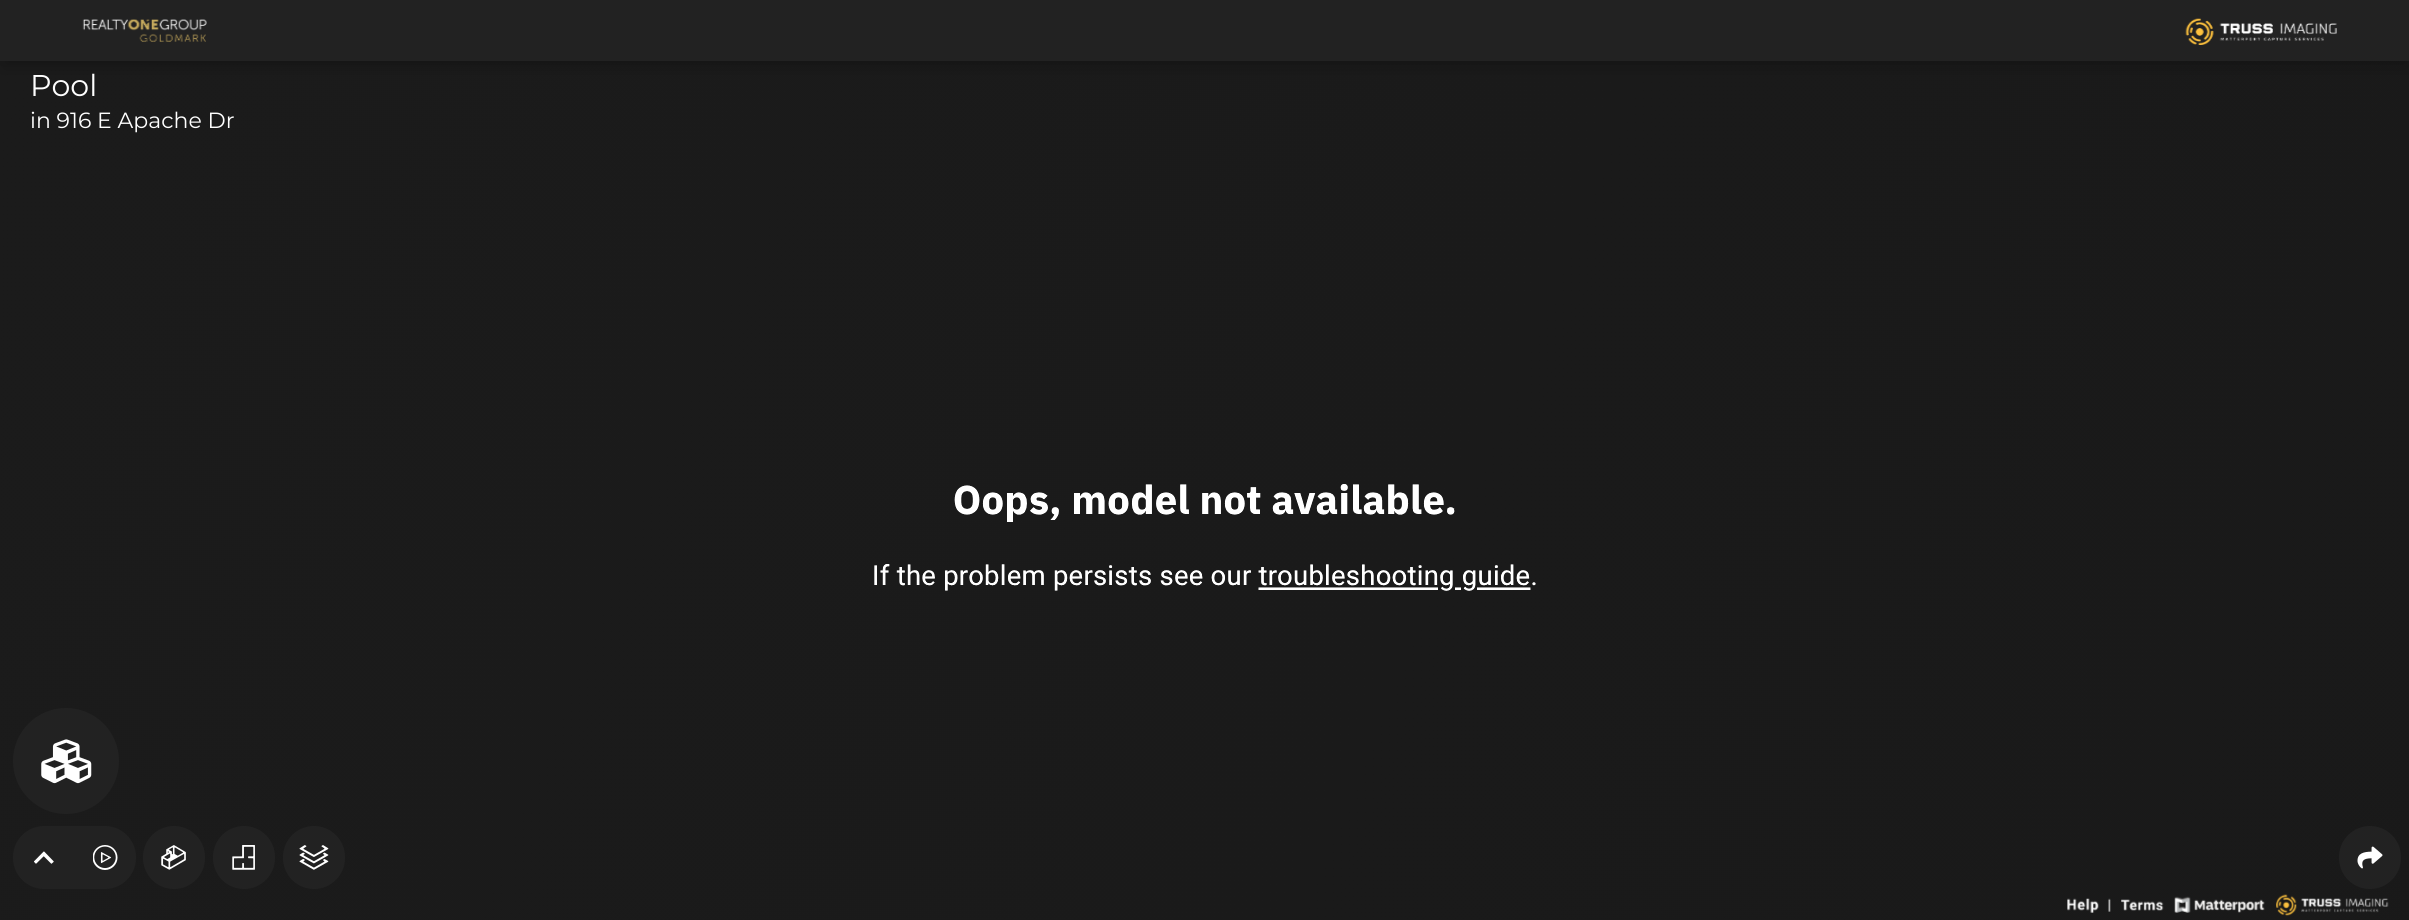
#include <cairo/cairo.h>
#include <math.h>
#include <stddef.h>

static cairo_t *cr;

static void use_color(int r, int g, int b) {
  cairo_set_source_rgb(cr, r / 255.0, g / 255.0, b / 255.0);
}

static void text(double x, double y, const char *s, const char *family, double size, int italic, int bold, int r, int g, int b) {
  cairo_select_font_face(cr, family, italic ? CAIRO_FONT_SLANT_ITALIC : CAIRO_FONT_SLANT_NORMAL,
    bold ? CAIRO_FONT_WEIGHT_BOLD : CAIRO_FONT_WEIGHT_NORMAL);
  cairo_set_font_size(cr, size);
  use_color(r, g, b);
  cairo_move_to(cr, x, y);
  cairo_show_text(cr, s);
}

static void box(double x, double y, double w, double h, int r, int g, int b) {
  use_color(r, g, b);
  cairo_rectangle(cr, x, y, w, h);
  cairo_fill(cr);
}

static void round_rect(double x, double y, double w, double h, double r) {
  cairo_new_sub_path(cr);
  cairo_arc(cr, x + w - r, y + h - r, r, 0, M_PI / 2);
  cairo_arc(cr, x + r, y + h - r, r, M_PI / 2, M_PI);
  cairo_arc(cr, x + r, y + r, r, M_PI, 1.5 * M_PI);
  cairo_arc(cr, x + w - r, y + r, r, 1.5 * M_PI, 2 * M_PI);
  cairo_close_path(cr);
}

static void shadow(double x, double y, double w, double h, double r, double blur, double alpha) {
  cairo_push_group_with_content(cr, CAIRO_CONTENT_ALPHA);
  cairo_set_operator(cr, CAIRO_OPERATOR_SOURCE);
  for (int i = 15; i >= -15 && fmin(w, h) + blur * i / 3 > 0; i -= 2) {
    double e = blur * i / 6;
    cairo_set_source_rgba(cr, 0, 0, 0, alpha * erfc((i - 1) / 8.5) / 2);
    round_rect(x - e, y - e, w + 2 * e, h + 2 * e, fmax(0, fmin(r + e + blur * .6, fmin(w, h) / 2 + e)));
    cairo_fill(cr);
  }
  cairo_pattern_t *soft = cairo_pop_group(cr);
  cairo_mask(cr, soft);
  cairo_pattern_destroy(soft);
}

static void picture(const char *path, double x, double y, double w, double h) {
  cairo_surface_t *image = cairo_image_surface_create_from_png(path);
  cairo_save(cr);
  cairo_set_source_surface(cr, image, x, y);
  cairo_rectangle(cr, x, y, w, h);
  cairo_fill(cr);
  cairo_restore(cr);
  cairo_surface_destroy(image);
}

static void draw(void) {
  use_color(255, 255, 255);
  cairo_paint(cr);
  picture("img_03.png", 0, 61, 2409, 859);
  use_color(0, 0, 0);
  shadow(6, 15, 2398, 49, 0, 6, 0.15);
  shadow(0, 5, 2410, 61, 0, 11, 0.12);
  box(0, 0, 2409, 61, 34, 34, 34);
  picture("img_01.png", 82, 19, 125, 23);
  picture("img_02.png", 2185, 18, 152, 27);
  cairo_arc(cr, 66, 761, 53, 0, 2 * M_PI);
  cairo_fill(cr);
  picture("img_04.png", 41, 739, 51, 45);
  cairo_new_path(cr);
  cairo_move_to(cr, 44, 826);
  cairo_line_to(cr, 75, 826);
  cairo_line_to(cr, 75, 889);
  cairo_line_to(cr, 44, 889);
  cairo_curve_to(cr, 27, 889, 13, 875, 13, 858);
  cairo_line_to(cr, 13, 857);
  cairo_curve_to(cr, 13, 840, 27, 826, 44, 826);
  cairo_close_path(cr);
  cairo_fill(cr);
  picture("img_05.png", 34, 851, 20, 13);
  cairo_new_path(cr);
  cairo_move_to(cr, 74, 826);
  cairo_line_to(cr, 105, 826);
  cairo_curve_to(cr, 122, 826, 136, 840, 136, 857);
  cairo_line_to(cr, 136, 858);
  cairo_curve_to(cr, 136, 875, 122, 889, 105, 889);
  cairo_line_to(cr, 74, 889);
  cairo_close_path(cr);
  cairo_fill(cr);
  picture("img_06.png", 93, 845, 25, 25);
  round_rect(143, 826, 62, 63, 31);
  cairo_fill(cr);
  picture("img_07.png", 161, 845, 25, 25);
  round_rect(213, 826, 62, 63, 31);
  cairo_fill(cr);
  picture("img_08.png", 232, 845, 23, 25);
  round_rect(283, 826, 62, 63, 31);
  cairo_fill(cr);
  picture("img_09.png", 299, 845, 30, 25);
  round_rect(2339, 826, 62, 63, 31);
  cairo_fill(cr);
  picture("img_10.png", 2357, 846, 26, 23);
  picture("img_11.png", 2067, 898, 44, 15);
  picture("img_12.png", 2121, 899, 43, 12);
  picture("img_13.png", 2174, 896, 91, 17);
  picture("img_14.png", 2276, 894, 113, 22);
  text(30, 96, "Pool", "Montserrat Thin", 30, 0, 0, 255, 255, 255);
  text(30, 128, "in 916 E Apache Dr", "Montserrat Thin", 22, 0, 0, 255, 255, 255);
}

int main(void) {
  cairo_surface_t *surface = cairo_image_surface_create(CAIRO_FORMAT_RGB24, 2409, 920);
  cr = cairo_create(surface);
  cairo_font_options_t *options = cairo_font_options_create();
  cairo_font_options_set_hint_metrics(options, CAIRO_HINT_METRICS_OFF);
  cairo_font_options_set_hint_style(options, CAIRO_HINT_STYLE_NONE);
  cairo_set_font_options(cr, options);
  cairo_set_miter_limit(cr, 4);
  draw();
  cairo_surface_write_to_png(surface, "out.png");
  cairo_font_options_destroy(options);
  cairo_destroy(cr);
  cairo_surface_destroy(surface);
  return 0;
}
